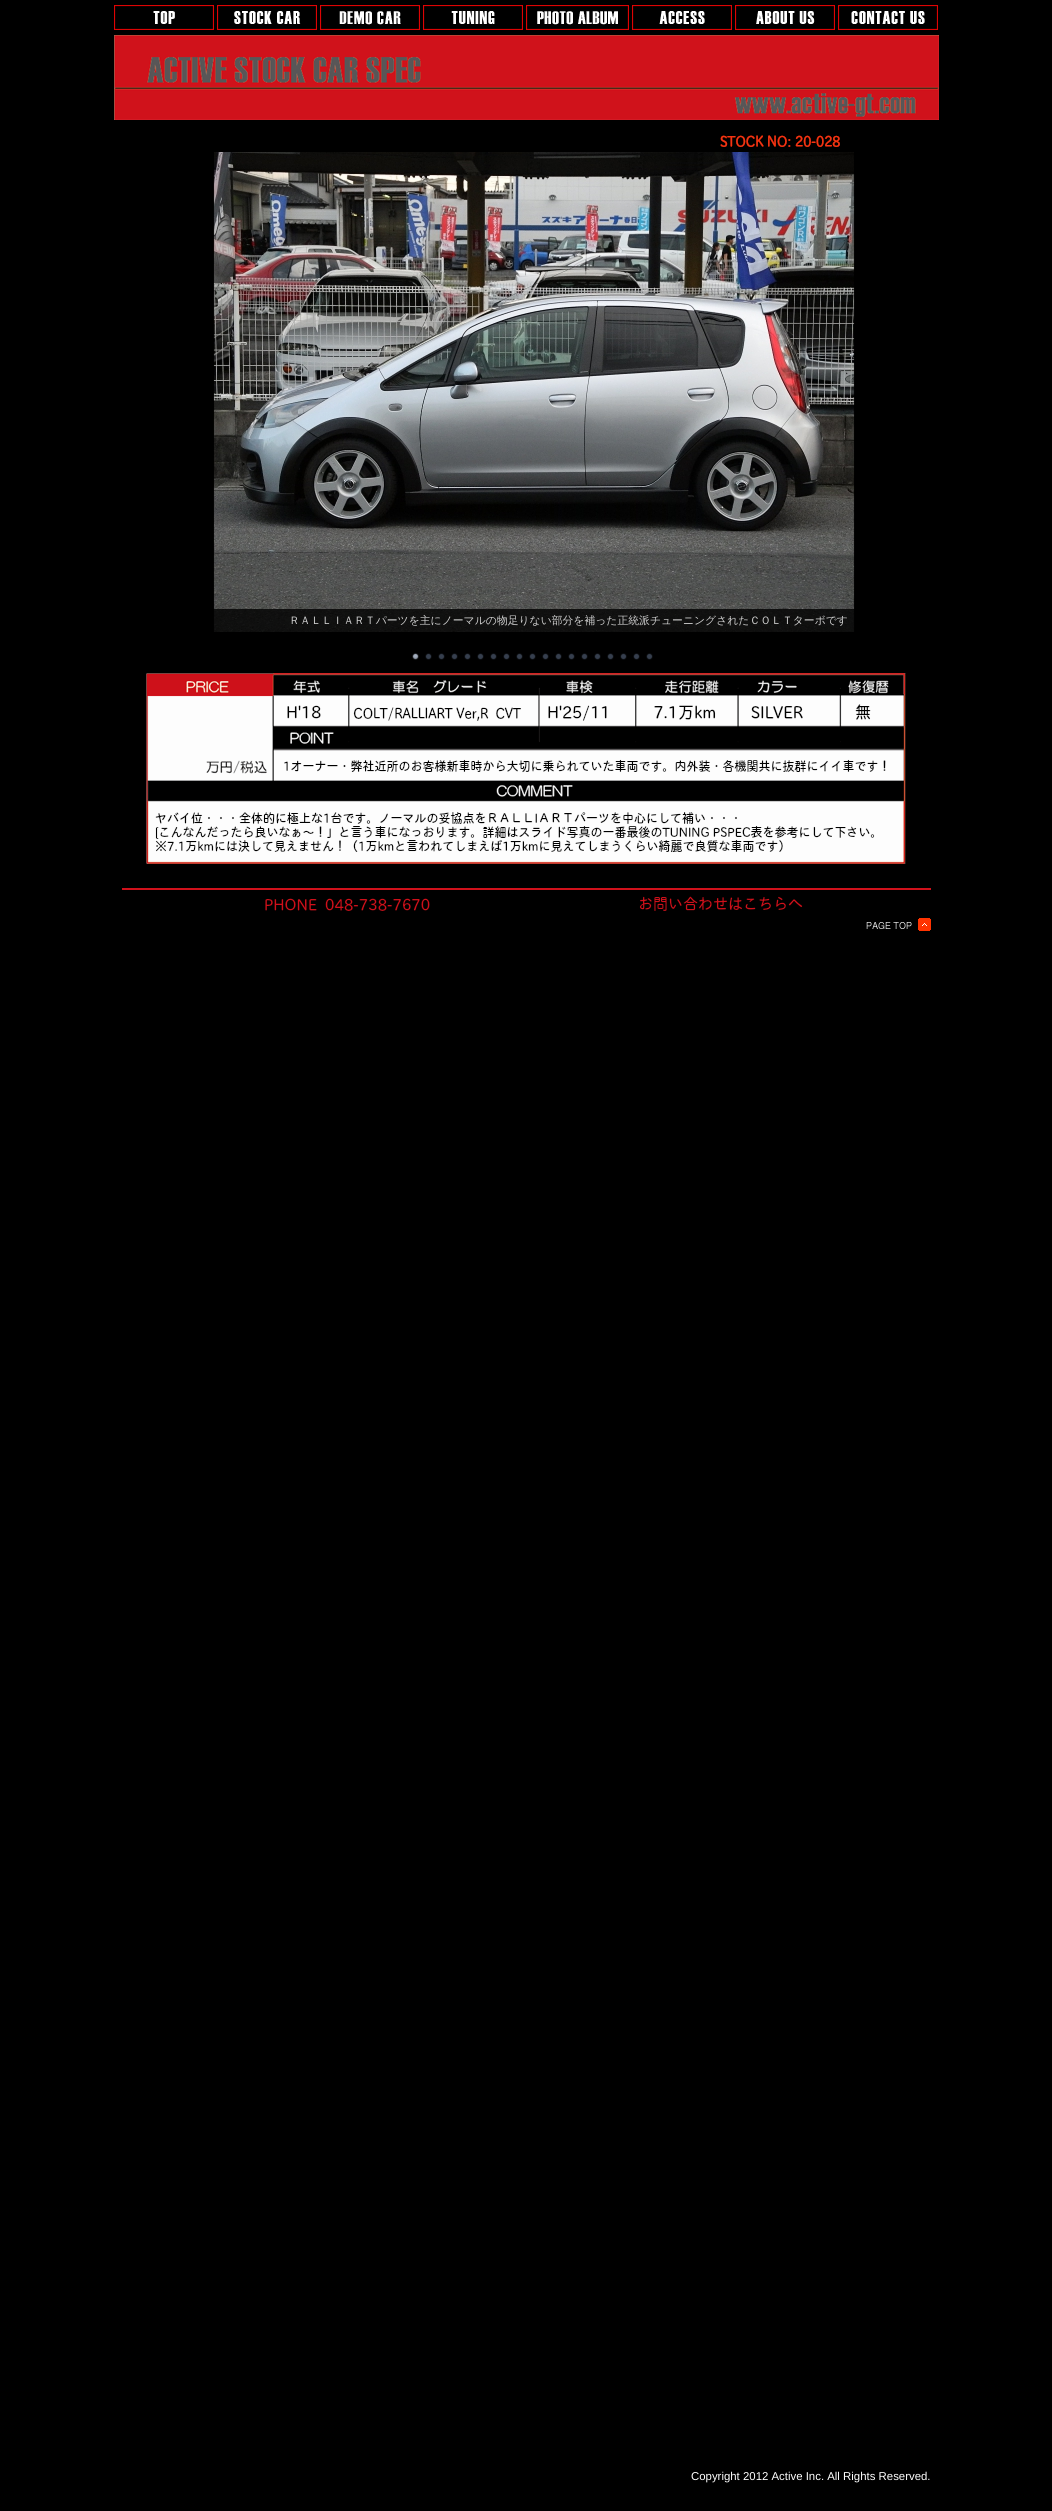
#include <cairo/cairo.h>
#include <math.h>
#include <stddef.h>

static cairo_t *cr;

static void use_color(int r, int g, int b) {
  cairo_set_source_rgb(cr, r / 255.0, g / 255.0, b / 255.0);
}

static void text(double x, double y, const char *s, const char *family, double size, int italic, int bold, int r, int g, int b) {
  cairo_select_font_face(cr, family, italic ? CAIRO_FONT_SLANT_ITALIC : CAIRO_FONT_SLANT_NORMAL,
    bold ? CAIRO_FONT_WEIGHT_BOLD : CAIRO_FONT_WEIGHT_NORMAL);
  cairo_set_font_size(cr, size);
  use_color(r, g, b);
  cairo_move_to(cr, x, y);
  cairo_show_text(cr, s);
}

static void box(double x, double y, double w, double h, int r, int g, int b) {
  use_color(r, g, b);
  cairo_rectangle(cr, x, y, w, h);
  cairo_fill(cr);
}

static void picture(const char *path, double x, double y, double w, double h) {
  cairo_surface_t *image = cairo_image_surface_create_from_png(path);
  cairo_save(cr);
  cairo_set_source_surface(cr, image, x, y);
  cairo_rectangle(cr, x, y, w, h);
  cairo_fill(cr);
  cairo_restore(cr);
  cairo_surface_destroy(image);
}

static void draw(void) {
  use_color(0, 0, 0);
  cairo_paint(cr);
  picture("img_01.png", 114, 5, 100, 25);
  picture("img_02.png", 217, 5, 100, 25);
  picture("img_03.png", 320, 5, 100, 25);
  picture("img_04.png", 423, 5, 100, 25);
  picture("img_05.png", 526, 5, 103, 25);
  picture("img_06.png", 632, 5, 100, 25);
  picture("img_07.png", 735, 5, 100, 25);
  picture("img_08.png", 838, 5, 100, 25);
  picture("img_09.png", 114, 35, 825, 85);
  picture("img_10.png", 720, 135, 120, 12);
  picture("img_11.png", 213, 152, 642, 480);
  cairo_set_source_rgba(cr, 0, 0, 0, 0.8);
  cairo_rectangle(cr, 213, 609, 642, 23);
  cairo_fill(cr);
  picture("img_12.png", 412, 653, 7, 7);
  picture("img_13.png", 425, 653, 7, 7);
  picture("img_13.png", 438, 653, 7, 7);
  picture("img_13.png", 451, 653, 7, 7);
  picture("img_13.png", 464, 653, 7, 7);
  picture("img_13.png", 477, 653, 7, 7);
  picture("img_13.png", 490, 653, 7, 7);
  picture("img_13.png", 503, 653, 7, 7);
  picture("img_13.png", 516, 653, 7, 7);
  picture("img_13.png", 529, 653, 7, 7);
  picture("img_13.png", 542, 653, 7, 7);
  picture("img_13.png", 555, 653, 7, 7);
  picture("img_13.png", 568, 653, 7, 7);
  picture("img_13.png", 581, 653, 7, 7);
  picture("img_13.png", 594, 653, 7, 7);
  picture("img_13.png", 607, 653, 7, 7);
  picture("img_13.png", 620, 653, 7, 7);
  picture("img_13.png", 633, 653, 7, 7);
  picture("img_13.png", 646, 653, 7, 7);
  picture("img_14.png", 146, 673, 760, 191);
  box(122, 888, 809, 2, 208, 17, 27);
  picture("img_15.png", 265, 898, 165, 13);
  picture("img_16.png", 639, 896, 164, 15);
  picture("img_17.png", 866, 918, 65, 13);
  text(289, 624, "ＲＡＬＬＩＡＲＴパーツを主にノーマルの物足りない部分を補った正統派チューニングされたＣＯＬＴターボです", "WenQuanYi Zen Hei Medium", 10.83, 0, 0, 207, 207, 207);
  text(691, 2480, "Copyright 2012 Active Inc. All Rights Reserved.", "Liberation Sans", 11.4, 0, 0, 255, 255, 255);
}

int main(void) {
  cairo_surface_t *surface = cairo_image_surface_create(CAIRO_FORMAT_RGB24, 1052, 2511);
  cr = cairo_create(surface);
  cairo_font_options_t *options = cairo_font_options_create();
  cairo_font_options_set_hint_metrics(options, CAIRO_HINT_METRICS_OFF);
  cairo_font_options_set_hint_style(options, CAIRO_HINT_STYLE_NONE);
  cairo_set_font_options(cr, options);
  cairo_set_miter_limit(cr, 4);
  draw();
  cairo_surface_write_to_png(surface, "out.png");
  cairo_font_options_destroy(options);
  cairo_destroy(cr);
  cairo_surface_destroy(surface);
  return 0;
}
